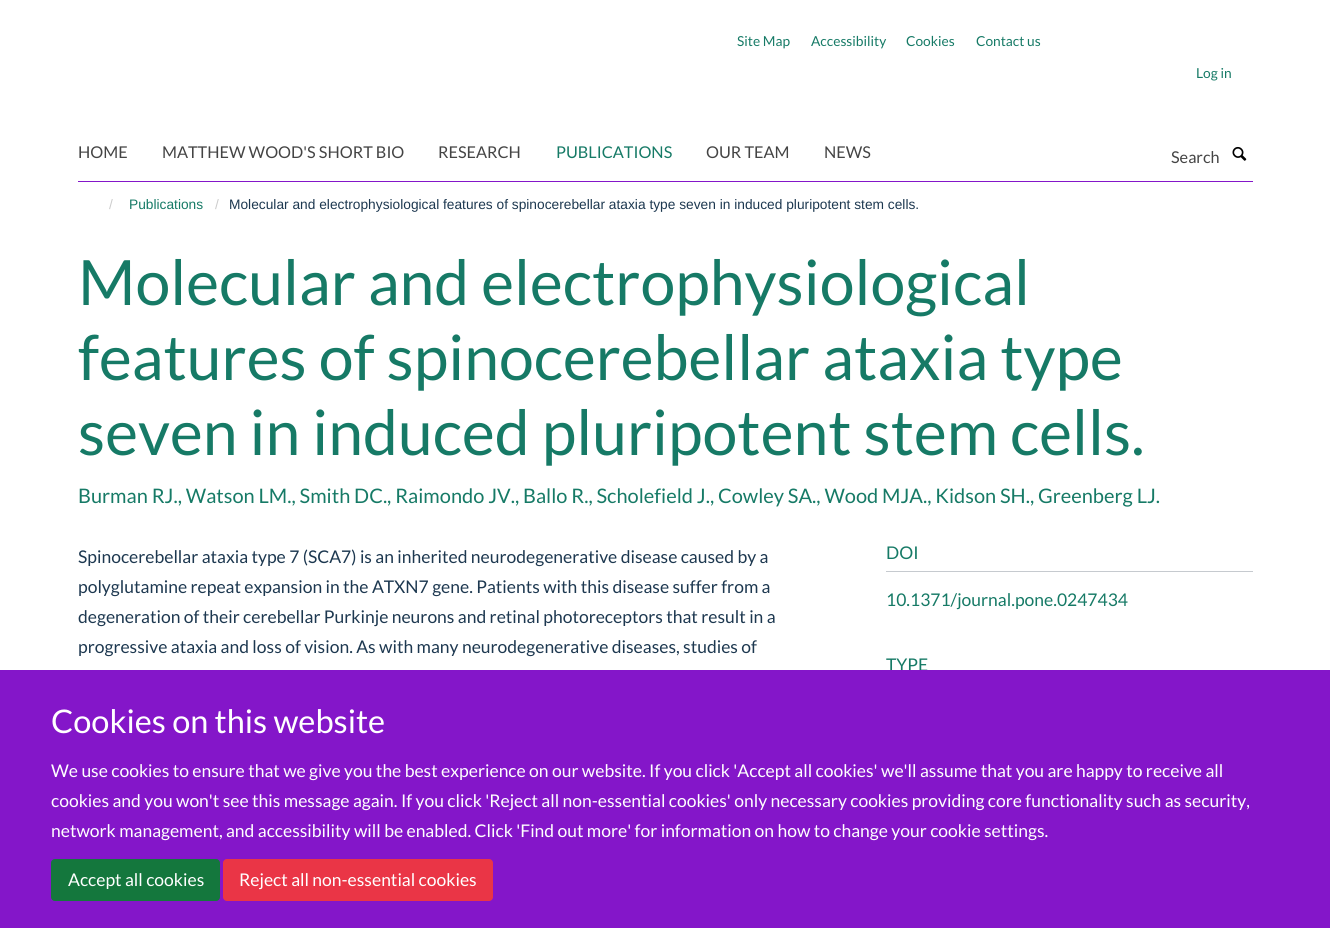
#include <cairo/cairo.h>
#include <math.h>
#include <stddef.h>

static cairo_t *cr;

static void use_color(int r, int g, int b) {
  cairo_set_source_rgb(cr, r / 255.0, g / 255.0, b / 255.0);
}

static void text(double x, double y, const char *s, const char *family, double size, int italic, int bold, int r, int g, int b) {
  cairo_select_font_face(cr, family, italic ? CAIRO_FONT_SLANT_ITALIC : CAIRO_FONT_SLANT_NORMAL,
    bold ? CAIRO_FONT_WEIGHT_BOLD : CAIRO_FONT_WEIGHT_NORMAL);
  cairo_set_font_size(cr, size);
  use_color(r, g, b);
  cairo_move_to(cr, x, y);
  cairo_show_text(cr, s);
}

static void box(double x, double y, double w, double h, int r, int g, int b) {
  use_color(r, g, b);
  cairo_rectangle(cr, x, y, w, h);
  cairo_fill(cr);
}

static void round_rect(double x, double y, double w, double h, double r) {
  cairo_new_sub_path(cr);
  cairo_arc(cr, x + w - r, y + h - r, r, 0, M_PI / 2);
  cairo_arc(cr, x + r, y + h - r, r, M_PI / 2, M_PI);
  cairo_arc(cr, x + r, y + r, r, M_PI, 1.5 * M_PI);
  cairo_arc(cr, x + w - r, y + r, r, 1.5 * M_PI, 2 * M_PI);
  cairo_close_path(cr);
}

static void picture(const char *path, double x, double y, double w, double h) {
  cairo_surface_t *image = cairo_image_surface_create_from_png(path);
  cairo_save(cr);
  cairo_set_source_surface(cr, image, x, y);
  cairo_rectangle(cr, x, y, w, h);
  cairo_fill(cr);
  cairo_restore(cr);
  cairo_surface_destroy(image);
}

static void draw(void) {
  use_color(255, 255, 255);
  cairo_paint(cr);
  box(78, 181, 1175, 1, 132, 22, 201);
  picture("img_01.png", 1232, 146, 15, 15);
  box(886, 571, 367, 1, 198, 202, 207);
  text(737, 46, "Site Map", "Lato", 13.75, 0, 0, 22, 122, 102);
  text(811, 46, "Accessibility", "Lato", 13.75, 0, 0, 22, 122, 102);
  text(906, 46, "Cookies", "Lato", 13.75, 0, 0, 22, 122, 102);
  text(976, 46, "Contact us", "Lato", 13.75, 0, 0, 22, 122, 102);
  text(1196, 78, "Log in", "Lato", 13.75, 0, 0, 22, 122, 102);
  text(78, 158, "HOME", "Lato", 16.25, 0, 0, 68, 68, 68);
  text(162, 158, "MATTHEW WOOD'S SHORT BIO", "Lato", 16.25, 0, 0, 68, 68, 68);
  text(438, 158, "RESEARCH", "Lato", 16.25, 0, 0, 68, 68, 68);
  text(556, 158, "PUBLICATIONS", "Lato", 16.25, 0, 0, 22, 122, 102);
  text(706, 158, "OUR TEAM", "Lato", 16.25, 0, 0, 68, 68, 68);
  text(824, 158, "NEWS", "Lato", 16.25, 0, 0, 68, 68, 68);
  text(1171, 163, "Search", "Lato", 16.25, 0, 0, 68, 68, 68);
  text(109, 209, "/", "Liberation Sans", 13.75, 0, 0, 204, 204, 204);
  text(129, 209, "Publications", "Liberation Sans", 13.75, 0, 0, 22, 122, 102);
  text(215, 209, "/", "Liberation Sans", 13.75, 0, 0, 204, 204, 204);
  text(229, 209, "Molecular and electrophysiological features of spinocerebellar ataxia type seven in induced pluripotent stem cells.", "Liberation Sans", 13.75, 0, 0, 29, 56, 80);
  text(78, 305, "Molecular and electrophysiological", "Lato", 62.5, 0, 0, 22, 122, 102);
  text(78, 380, "features of spinocerebellar ataxia type", "Lato", 62.5, 0, 0, 22, 122, 102);
  text(78, 455, "seven in induced pluripotent stem cells.", "Lato", 62.5, 0, 0, 22, 122, 102);
  text(78, 503, "Burman RJ., Watson LM., Smith DC., Raimondo JV., Ballo R., Scholefield J., Cowley SA., Wood MJA., Kidson SH., Greenberg LJ.", "Lato", 20, 0, 0, 22, 122, 102);
  text(78, 563, "Spinocerebellar ataxia type 7 (SCA7) is an inherited neurodegenerative disease caused by a", "Lato", 17.5, 0, 0, 29, 56, 80);
  text(78, 593, "polyglutamine repeat expansion in the ATXN7 gene. Patients with this disease suffer from a", "Lato", 17.5, 0, 0, 29, 56, 80);
  text(78, 623, "degeneration of their cerebellar Purkinje neurons and retinal photoreceptors that result in a", "Lato", 17.5, 0, 0, 29, 56, 80);
  text(78, 653, "progressive ataxia and loss of vision. As with many neurodegenerative diseases, studies of", "Lato", 17.5, 0, 0, 29, 56, 80);
  text(886, 559, "DOI", "Lato", 17.5, 0, 0, 22, 122, 102);
  text(886, 606, "10.1371/journal.pone.0247434", "Lato", 17.5, 0, 0, 22, 122, 102);
  text(886, 671, "TYPE", "Lato", 17.5, 0, 0, 22, 122, 102);
  box(0, 670, 1330, 258, 132, 22, 201);
  text(51, 733, "Cookies on this website", "Lato", 32.5, 0, 0, 255, 255, 255);
  text(51, 777, "We use cookies to ensure that we give you the best experience on our website. If you click 'Accept all cookies' we'll assume that you are happy to receive all", "Lato", 17.5, 0, 0, 255, 255, 255);
  text(51, 807, "cookies and you won't see this message again. If you click 'Reject all non-essential cookies' only necessary cookies providing core functionality such as security,", "Lato", 17.5, 0, 0, 255, 255, 255);
  text(51, 837, "network management, and accessibility will be enabled. Click 'Find out more' for information on how to change your cookie settings.", "Lato", 17.5, 0, 0, 255, 255, 255);
  use_color(20, 119, 61);
  round_rect(51.5, 859.5, 168, 41, 3.5);
  cairo_fill_preserve(cr);
  cairo_set_line_width(cr, 1);
  cairo_stroke(cr);
  text(68, 886, "Accept all cookies", "Lato", 17.5, 0, 0, 255, 255, 255);
  use_color(234, 53, 70);
  round_rect(223.5, 859.5, 269, 41, 3.5);
  cairo_fill_preserve(cr);
  cairo_stroke(cr);
  text(239, 886, "Reject all non-essential cookies", "Lato", 17.5, 0, 0, 255, 255, 255);
}

int main(void) {
  cairo_surface_t *surface = cairo_image_surface_create(CAIRO_FORMAT_RGB24, 1330, 928);
  cr = cairo_create(surface);
  cairo_font_options_t *options = cairo_font_options_create();
  cairo_font_options_set_hint_metrics(options, CAIRO_HINT_METRICS_OFF);
  cairo_font_options_set_hint_style(options, CAIRO_HINT_STYLE_NONE);
  cairo_set_font_options(cr, options);
  cairo_set_miter_limit(cr, 4);
  draw();
  cairo_surface_write_to_png(surface, "out.png");
  cairo_font_options_destroy(options);
  cairo_destroy(cr);
  cairo_surface_destroy(surface);
  return 0;
}
